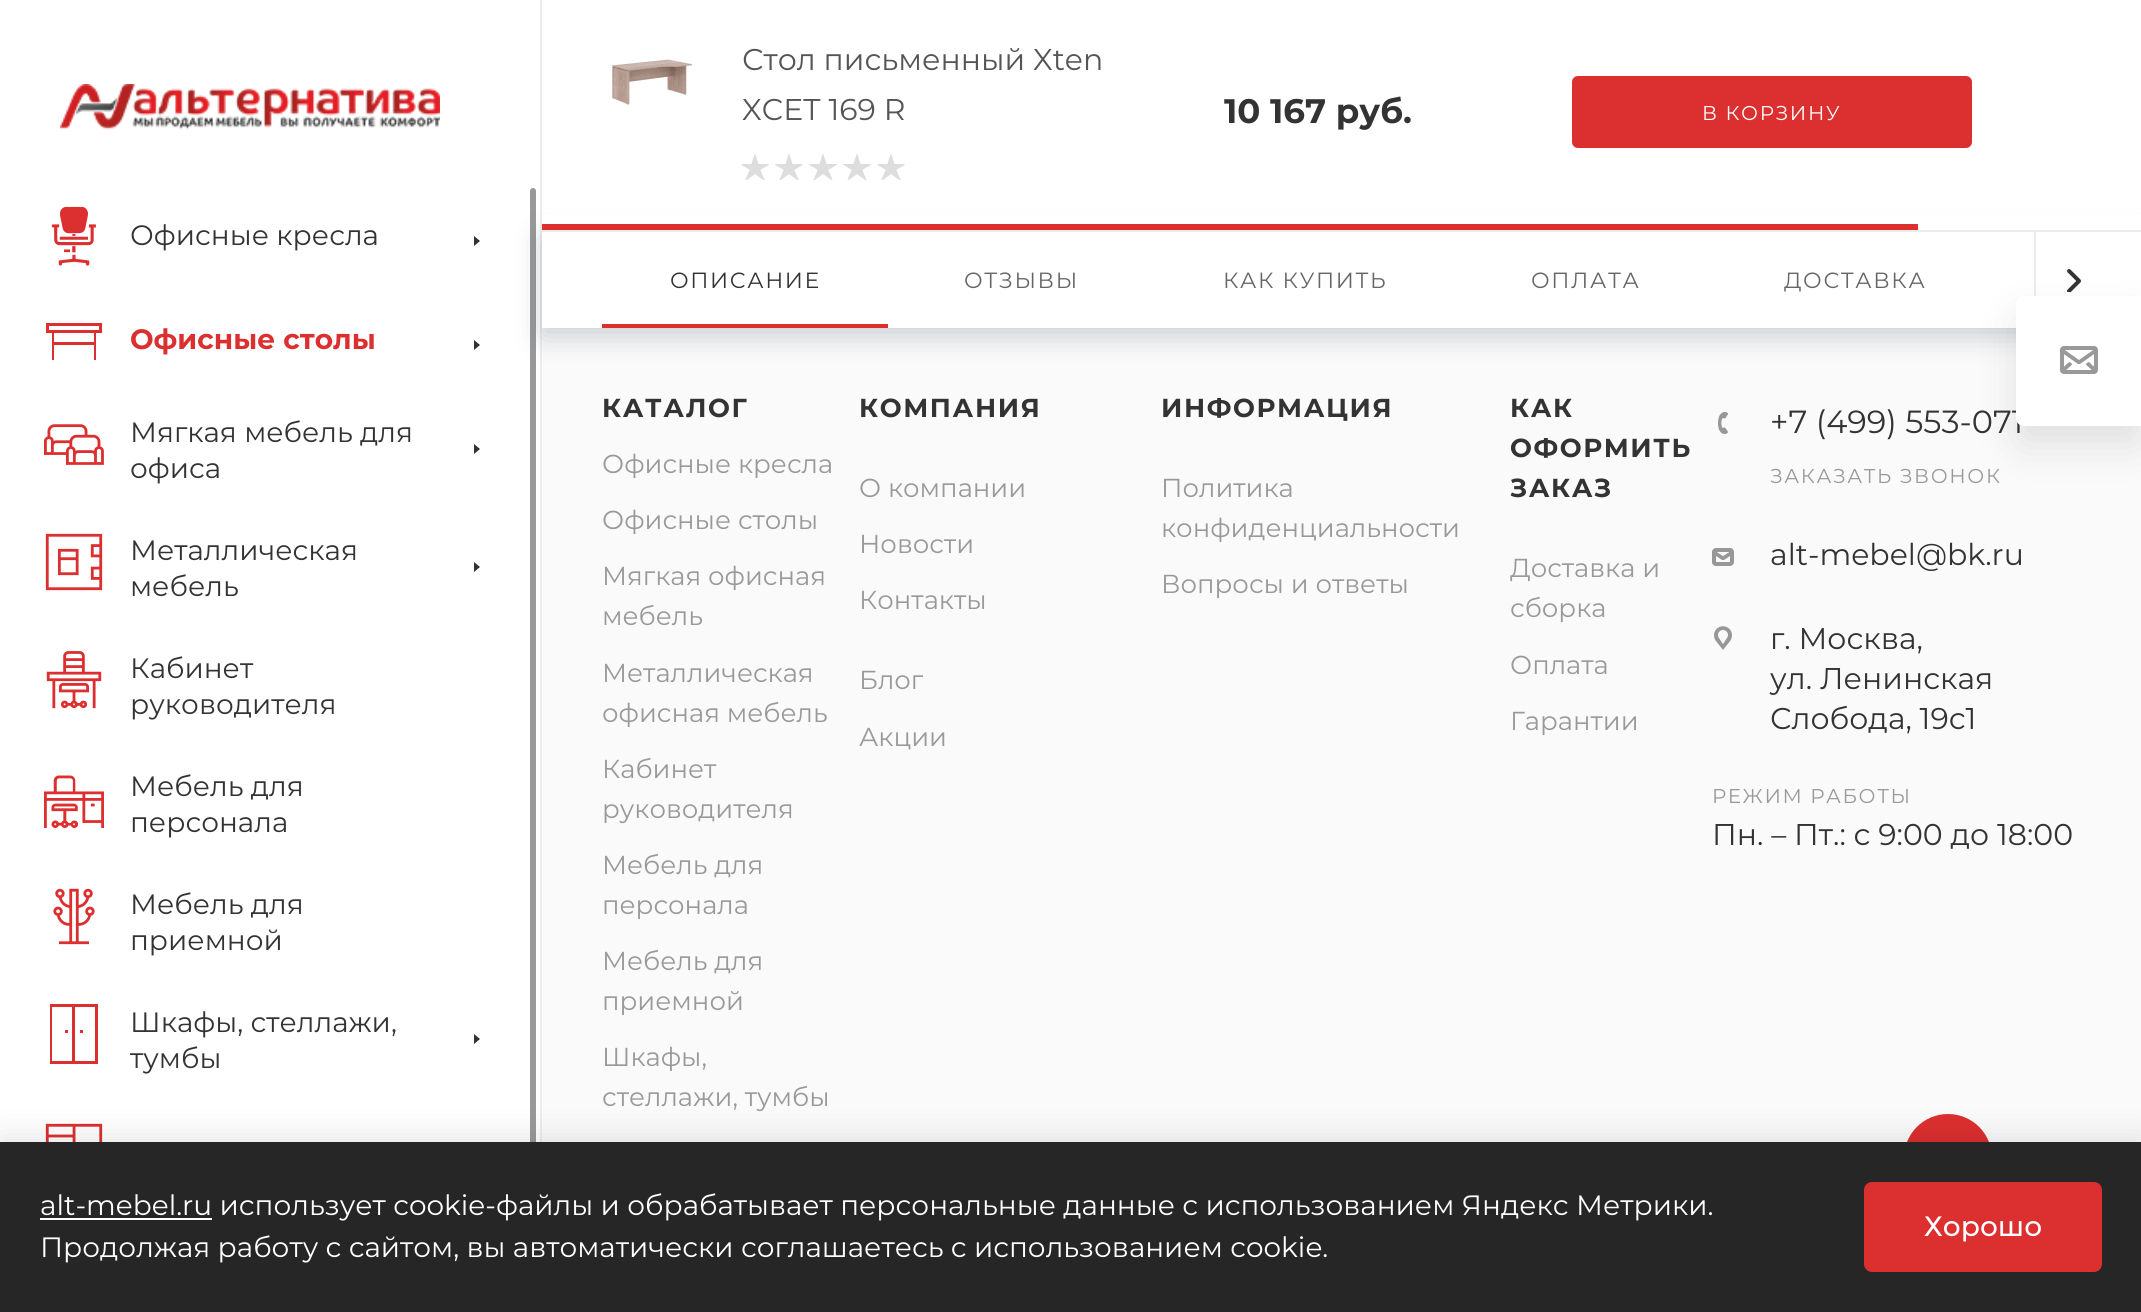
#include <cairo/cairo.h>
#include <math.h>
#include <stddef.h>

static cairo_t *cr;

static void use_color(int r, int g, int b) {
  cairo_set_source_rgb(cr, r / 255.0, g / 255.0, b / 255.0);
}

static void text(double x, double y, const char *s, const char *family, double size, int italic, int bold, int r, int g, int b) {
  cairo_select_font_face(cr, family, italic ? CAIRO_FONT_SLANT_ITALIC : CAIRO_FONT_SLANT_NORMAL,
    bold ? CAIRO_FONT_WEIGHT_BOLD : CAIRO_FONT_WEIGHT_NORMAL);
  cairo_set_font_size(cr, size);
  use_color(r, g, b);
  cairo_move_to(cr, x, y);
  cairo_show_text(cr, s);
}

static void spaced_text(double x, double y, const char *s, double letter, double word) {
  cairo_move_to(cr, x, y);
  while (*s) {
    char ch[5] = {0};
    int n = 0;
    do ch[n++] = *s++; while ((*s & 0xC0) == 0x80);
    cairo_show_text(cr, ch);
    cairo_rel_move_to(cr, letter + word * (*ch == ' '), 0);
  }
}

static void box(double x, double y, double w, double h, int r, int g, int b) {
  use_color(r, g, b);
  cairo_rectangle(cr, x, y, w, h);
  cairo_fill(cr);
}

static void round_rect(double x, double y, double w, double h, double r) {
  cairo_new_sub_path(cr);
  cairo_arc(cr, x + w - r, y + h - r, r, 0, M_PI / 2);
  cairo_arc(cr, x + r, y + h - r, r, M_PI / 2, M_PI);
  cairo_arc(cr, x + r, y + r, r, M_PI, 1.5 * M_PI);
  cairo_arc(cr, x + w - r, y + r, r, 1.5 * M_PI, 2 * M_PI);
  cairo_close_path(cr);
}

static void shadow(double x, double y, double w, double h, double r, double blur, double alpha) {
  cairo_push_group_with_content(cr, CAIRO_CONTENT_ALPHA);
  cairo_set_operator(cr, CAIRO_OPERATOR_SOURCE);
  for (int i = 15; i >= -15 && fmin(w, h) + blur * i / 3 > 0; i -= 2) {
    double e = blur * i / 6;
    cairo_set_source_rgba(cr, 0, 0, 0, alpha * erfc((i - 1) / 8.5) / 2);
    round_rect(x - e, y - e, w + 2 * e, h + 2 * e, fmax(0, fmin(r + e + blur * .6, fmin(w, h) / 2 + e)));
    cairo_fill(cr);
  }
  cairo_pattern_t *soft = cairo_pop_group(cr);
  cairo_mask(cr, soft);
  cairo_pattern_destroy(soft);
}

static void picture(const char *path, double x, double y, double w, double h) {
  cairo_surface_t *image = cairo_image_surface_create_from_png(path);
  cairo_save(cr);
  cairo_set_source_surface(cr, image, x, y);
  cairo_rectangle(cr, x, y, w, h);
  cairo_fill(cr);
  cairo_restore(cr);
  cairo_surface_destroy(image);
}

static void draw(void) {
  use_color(255, 255, 255);
  cairo_paint(cr);
  box(540, 0, 2, 1142, 236, 236, 236);
  use_color(153, 153, 153);
  round_rect(530, 188, 6, 1068, 3);
  cairo_fill(cr);
  box(542, 328, 1599, 814, 250, 250, 250);
  use_color(32, 54, 74);
  shadow(542, 238, 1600, 98, 0, 14, 0.23);
  box(542, 215, 1599, 15, 255, 255, 255);
  picture("img_01.png", 612, 59, 80, 46);
  picture("img_02.png", 741, 154, 28, 26);
  picture("img_02.png", 775, 154, 28, 26);
  picture("img_02.png", 809, 154, 28, 26);
  picture("img_02.png", 843, 154, 28, 26);
  picture("img_02.png", 877, 154, 28, 26);
  use_color(220, 47, 47);
  round_rect(1573, 77, 398, 70, 5);
  cairo_fill_preserve(cr);
  cairo_stroke(cr);
  box(542, 224, 1376, 6, 220, 47, 47);
  picture("img_03.png", 60, 84, 380, 46);
  picture("img_04.png", 51, 206, 45, 60);
  use_color(51, 51, 51);
  cairo_set_fill_rule(cr, CAIRO_FILL_RULE_EVEN_ODD);
  cairo_new_path(cr);
  cairo_move_to(cr, 474, 246);
  cairo_line_to(cr, 474, 236);
  cairo_line_to(cr, 480, 241);
  cairo_close_path(cr);
  cairo_fill(cr);
  use_color(220, 47, 47);
  cairo_set_fill_rule(cr, CAIRO_FILL_RULE_WINDING);
  cairo_new_path(cr);
  cairo_move_to(cr, 102, 323);
  cairo_line_to(cr, 46, 323);
  cairo_line_to(cr, 46, 333);
  cairo_line_to(cr, 52, 333);
  cairo_line_to(cr, 52, 360);
  cairo_line_to(cr, 54, 360);
  cairo_line_to(cr, 54, 345);
  cairo_line_to(cr, 94, 345);
  cairo_line_to(cr, 94, 360);
  cairo_line_to(cr, 96, 360);
  cairo_line_to(cr, 96, 333);
  cairo_line_to(cr, 102, 333);
  cairo_close_path(cr);
  cairo_move_to(cr, 94, 342);
  cairo_line_to(cr, 54, 342);
  cairo_line_to(cr, 54, 333);
  cairo_line_to(cr, 94, 333);
  cairo_close_path(cr);
  cairo_move_to(cr, 99, 330);
  cairo_line_to(cr, 49, 330);
  cairo_line_to(cr, 49, 326);
  cairo_line_to(cr, 99, 326);
  cairo_close_path(cr);
  cairo_fill(cr);
  use_color(51, 51, 51);
  cairo_set_fill_rule(cr, CAIRO_FILL_RULE_EVEN_ODD);
  cairo_new_path(cr);
  cairo_move_to(cr, 474, 350);
  cairo_line_to(cr, 474, 340);
  cairo_line_to(cr, 480, 345);
  cairo_close_path(cr);
  cairo_fill(cr);
  picture("img_05.png", 44, 424, 60, 41);
  cairo_new_path(cr);
  cairo_move_to(cr, 474, 454);
  cairo_line_to(cr, 474, 444);
  cairo_line_to(cr, 480, 449);
  cairo_close_path(cr);
  cairo_fill(cr);
  picture("img_06.png", 45, 533, 58, 58);
  cairo_new_path(cr);
  cairo_move_to(cr, 474, 572);
  cairo_line_to(cr, 474, 562);
  cairo_line_to(cr, 480, 567);
  cairo_close_path(cr);
  cairo_fill(cr);
  picture("img_07.png", 46, 651, 56, 58);
  picture("img_08.png", 44, 775, 60, 53);
  picture("img_09.png", 53, 888, 42, 57);
  use_color(220, 47, 47);
  cairo_set_fill_rule(cr, CAIRO_FILL_RULE_WINDING);
  cairo_new_path(cr);
  cairo_move_to(cr, 51, 1004);
  cairo_line_to(cr, 98, 1004);
  cairo_line_to(cr, 98, 1064);
  cairo_line_to(cr, 50, 1064);
  cairo_line_to(cr, 50, 1004);
  cairo_close_path(cr);
  cairo_move_to(cr, 75, 1007);
  cairo_line_to(cr, 75, 1061);
  cairo_line_to(cr, 95, 1061);
  cairo_line_to(cr, 95, 1007);
  cairo_close_path(cr);
  cairo_move_to(cr, 72, 1007);
  cairo_line_to(cr, 52, 1007);
  cairo_line_to(cr, 52, 1061);
  cairo_line_to(cr, 72, 1061);
  cairo_close_path(cr);
  cairo_move_to(cr, 68, 1033);
  cairo_line_to(cr, 65, 1033);
  cairo_line_to(cr, 65, 1030);
  cairo_line_to(cr, 68, 1030);
  cairo_close_path(cr);
  cairo_move_to(cr, 83, 1033);
  cairo_line_to(cr, 80, 1033);
  cairo_line_to(cr, 80, 1030);
  cairo_line_to(cr, 83, 1030);
  cairo_close_path(cr);
  cairo_fill(cr);
  use_color(51, 51, 51);
  cairo_set_fill_rule(cr, CAIRO_FILL_RULE_EVEN_ODD);
  cairo_new_path(cr);
  cairo_move_to(cr, 474, 1044);
  cairo_line_to(cr, 474, 1034);
  cairo_line_to(cr, 480, 1039);
  cairo_close_path(cr);
  cairo_fill(cr);
  picture("img_10.png", 45, 1123, 58, 19);
  box(542, 232, 1599, 96, 255, 255, 255);
  box(542, 230, 1599, 2, 236, 236, 236);
  box(602, 324, 286, 4, 220, 47, 47);
  box(2034, 232, 2, 64, 236, 236, 236);
  picture("img_11.png", 2067, 269, 14, 23);
  use_color(0, 0, 0);
  shadow(2016, 316, 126, 130, 8, 20, 0.1);
  picture("img_13.png", 1718, 412, 10, 22);
  picture("img_14.png", 1712, 548, 22, 18);
  picture("img_15.png", 1714, 626, 18, 24);
  use_color(220, 47, 47);
  cairo_arc(cr, 1948, 1158, 44, 0, 2 * M_PI);
  cairo_fill(cr);
  use_color(0, 0, 0);
  shadow(0, 1136, 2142, 170, 0, 15, 0.1);
  box(0, 1142, 2141, 170, 38, 38, 38);
  box(40, 1218, 172, 2, 255, 255, 255);
  use_color(220, 47, 47);
  round_rect(1864, 1182, 238, 90, 8);
  cairo_fill(cr);
  text(742, 70, "Стол письменный Xten", "Montserrat", 30, 0, 0, 85, 85, 85);
  text(742, 120, "XCET 169 R", "Montserrat", 30, 0, 0, 85, 85, 85);
  text(1224, 123, "10 167 руб.", "Montserrat", 34, 0, 1, 51, 51, 51);
  cairo_select_font_face(cr, "Montserrat", CAIRO_FONT_SLANT_NORMAL, CAIRO_FONT_WEIGHT_NORMAL);
  cairo_set_font_size(cr, 20);
  use_color(255, 255, 255);
  spaced_text(1702, 120, "В КОРЗИНУ", 1.6, 0);
  text(130, 245, "Офисные кресла", "Montserrat", 28, 0, 0, 51, 51, 51);
  text(130, 349, "Офисные столы", "Montserrat", 28, 0, 1, 220, 47, 47);
  text(130, 442, "Мягкая мебель для", "Montserrat", 28, 0, 0, 51, 51, 51);
  text(130, 478, "офиса", "Montserrat", 28, 0, 0, 51, 51, 51);
  text(130, 560, "Металлическая", "Montserrat", 28, 0, 0, 51, 51, 51);
  text(130, 596, "мебель", "Montserrat", 28, 0, 0, 51, 51, 51);
  text(130, 678, "Кабинет", "Montserrat", 28, 0, 0, 51, 51, 51);
  text(130, 714, "руководителя", "Montserrat", 28, 0, 0, 51, 51, 51);
  text(130, 796, "Мебель для", "Montserrat", 28, 0, 0, 51, 51, 51);
  text(130, 832, "персонала", "Montserrat", 28, 0, 0, 51, 51, 51);
  text(130, 914, "Мебель для", "Montserrat", 28, 0, 0, 51, 51, 51);
  text(130, 950, "приемной", "Montserrat", 28, 0, 0, 51, 51, 51);
  text(130, 1032, "Шкафы, стеллажи,", "Montserrat", 28, 0, 0, 51, 51, 51);
  text(130, 1068, "тумбы", "Montserrat", 28, 0, 0, 51, 51, 51);
  cairo_set_font_size(cr, 22);
  spaced_text(670, 288, "ОПИСАНИЕ", 1.6, 0);
  use_color(102, 102, 102);
  spaced_text(964, 288, "ОТЗЫВЫ", 1.6, 0);
  spaced_text(1223, 288, "КАК КУПИТЬ", 1.6, 0);
  spaced_text(1531, 288, "ОПЛАТА", 1.6, 0);
  spaced_text(1784, 288, "ДОСТАВКА", 1.6, 0);
  cairo_select_font_face(cr, "Montserrat", CAIRO_FONT_SLANT_NORMAL, CAIRO_FONT_WEIGHT_BOLD);
  cairo_set_font_size(cr, 26);
  use_color(51, 51, 51);
  spaced_text(602, 417, "КАТАЛОГ", 1.6, 0);
  text(602, 473, "Офисные кресла", "Montserrat", 26, 0, 0, 153, 153, 153);
  text(602, 529, "Офисные столы", "Montserrat", 26, 0, 0, 153, 153, 153);
  text(602, 585, "Мягкая офисная", "Montserrat", 26, 0, 0, 153, 153, 153);
  text(602, 625, "мебель", "Montserrat", 26, 0, 0, 153, 153, 153);
  text(602, 682, "Металлическая", "Montserrat", 26, 0, 0, 153, 153, 153);
  text(602, 722, "офисная мебель", "Montserrat", 26, 0, 0, 153, 153, 153);
  text(602, 778, "Кабинет", "Montserrat", 26, 0, 0, 153, 153, 153);
  text(602, 818, "руководителя", "Montserrat", 26, 0, 0, 153, 153, 153);
  text(602, 874, "Мебель для", "Montserrat", 26, 0, 0, 153, 153, 153);
  text(602, 914, "персонала", "Montserrat", 26, 0, 0, 153, 153, 153);
  text(602, 970, "Мебель для", "Montserrat", 26, 0, 0, 153, 153, 153);
  text(602, 1010, "приемной", "Montserrat", 26, 0, 0, 153, 153, 153);
  text(602, 1066, "Шкафы,", "Montserrat", 26, 0, 0, 153, 153, 153);
  text(602, 1106, "стеллажи, тумбы", "Montserrat", 26, 0, 0, 153, 153, 153);
  cairo_select_font_face(cr, "Montserrat", CAIRO_FONT_SLANT_NORMAL, CAIRO_FONT_WEIGHT_BOLD);
  use_color(51, 51, 51);
  spaced_text(859, 417, "КОМПАНИЯ", 1.6, 0);
  text(859, 497, "О компании", "Montserrat", 26, 0, 0, 153, 153, 153);
  text(859, 553, "Новости", "Montserrat", 26, 0, 0, 153, 153, 153);
  text(859, 609, "Контакты", "Montserrat", 26, 0, 0, 153, 153, 153);
  text(859, 689, "Блог", "Montserrat", 26, 0, 0, 153, 153, 153);
  text(859, 746, "Акции", "Montserrat", 26, 0, 0, 153, 153, 153);
  cairo_select_font_face(cr, "Montserrat", CAIRO_FONT_SLANT_NORMAL, CAIRO_FONT_WEIGHT_BOLD);
  use_color(51, 51, 51);
  spaced_text(1161, 417, "ИНФОРМАЦИЯ", 1.6, 0);
  text(1161, 497, "Политика", "Montserrat", 26, 0, 0, 153, 153, 153);
  text(1161, 537, "конфиденциальности", "Montserrat", 26, 0, 0, 153, 153, 153);
  text(1161, 593, "Вопросы и ответы", "Montserrat", 26, 0, 0, 153, 153, 153);
  cairo_select_font_face(cr, "Montserrat", CAIRO_FONT_SLANT_NORMAL, CAIRO_FONT_WEIGHT_BOLD);
  use_color(51, 51, 51);
  spaced_text(1510, 417, "КАК", 1.6, 0);
  spaced_text(1510, 457, "ОФОРМИТЬ", 1.6, 0);
  spaced_text(1510, 497, "ЗАКАЗ", 1.6, 0);
  text(1510, 577, "Доставка и", "Montserrat", 26, 0, 0, 153, 153, 153);
  text(1510, 617, "сборка", "Montserrat", 26, 0, 0, 153, 153, 153);
  text(1510, 674, "Оплата", "Montserrat", 26, 0, 0, 153, 153, 153);
  text(1510, 730, "Гарантии", "Montserrat", 26, 0, 0, 153, 153, 153);
  text(1770, 433, "+7 (499) 553-071", "Montserrat", 32, 0, 0, 51, 51, 51);
  use_color(255, 255, 255);
  cairo_new_path(cr);
  cairo_move_to(cr, 2024, 296);
  cairo_line_to(cr, 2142, 296);
  cairo_line_to(cr, 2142, 426);
  cairo_line_to(cr, 2024, 426);
  cairo_curve_to(cr, 2019.5, 426, 2016, 422.5, 2016, 418);
  cairo_line_to(cr, 2016, 304);
  cairo_curve_to(cr, 2016, 299.5, 2019.5, 296, 2024, 296);
  cairo_close_path(cr);
  cairo_fill(cr);
  picture("img_12.png", 2060, 346, 38, 28);
  cairo_set_font_size(cr, 20);
  use_color(153, 153, 153);
  spaced_text(1770, 483, "ЗАКАЗАТЬ ЗВОНОК", 1.6, 0);
  text(1770, 565, "alt-mebel@bk.ru", "Montserrat", 30, 0, 0, 51, 51, 51);
  text(1770, 649, "г. Москва,", "Montserrat", 30, 0, 0, 51, 51, 51);
  text(1770, 689, "ул. Ленинская", "Montserrat", 30, 0, 0, 51, 51, 51);
  text(1770, 729, "Слобода, 19с1", "Montserrat", 30, 0, 0, 51, 51, 51);
  cairo_set_font_size(cr, 20);
  use_color(153, 153, 153);
  spaced_text(1712, 803, "РЕЖИМ РАБОТЫ", 1.6, 0);
  text(1712, 845, "Пн. – Пт.: с 9:00 до 18:00", "Montserrat", 30, 0, 0, 51, 51, 51);
  text(40, 1215, "alt-mebel.ru использует cookie-файлы и обрабатывает персональные данные с использованием Яндекс Метрики.", "Montserrat", 28, 0, 0, 255, 255, 255);
  text(40, 1257, "Продолжая работу с сайтом, вы автоматически соглашаетесь с использованием cookie.", "Montserrat", 28, 0, 0, 255, 255, 255);
  text(1924, 1236, "Хорошо", "Montserrat Medium", 28, 0, 0, 255, 255, 255);
}

int main(void) {
  cairo_surface_t *surface = cairo_image_surface_create(CAIRO_FORMAT_RGB24, 2141, 1312);
  cr = cairo_create(surface);
  cairo_font_options_t *options = cairo_font_options_create();
  cairo_font_options_set_hint_metrics(options, CAIRO_HINT_METRICS_OFF);
  cairo_font_options_set_hint_style(options, CAIRO_HINT_STYLE_NONE);
  cairo_set_font_options(cr, options);
  cairo_set_miter_limit(cr, 4);
  draw();
  cairo_surface_write_to_png(surface, "out.png");
  cairo_font_options_destroy(options);
  cairo_destroy(cr);
  cairo_surface_destroy(surface);
  return 0;
}
